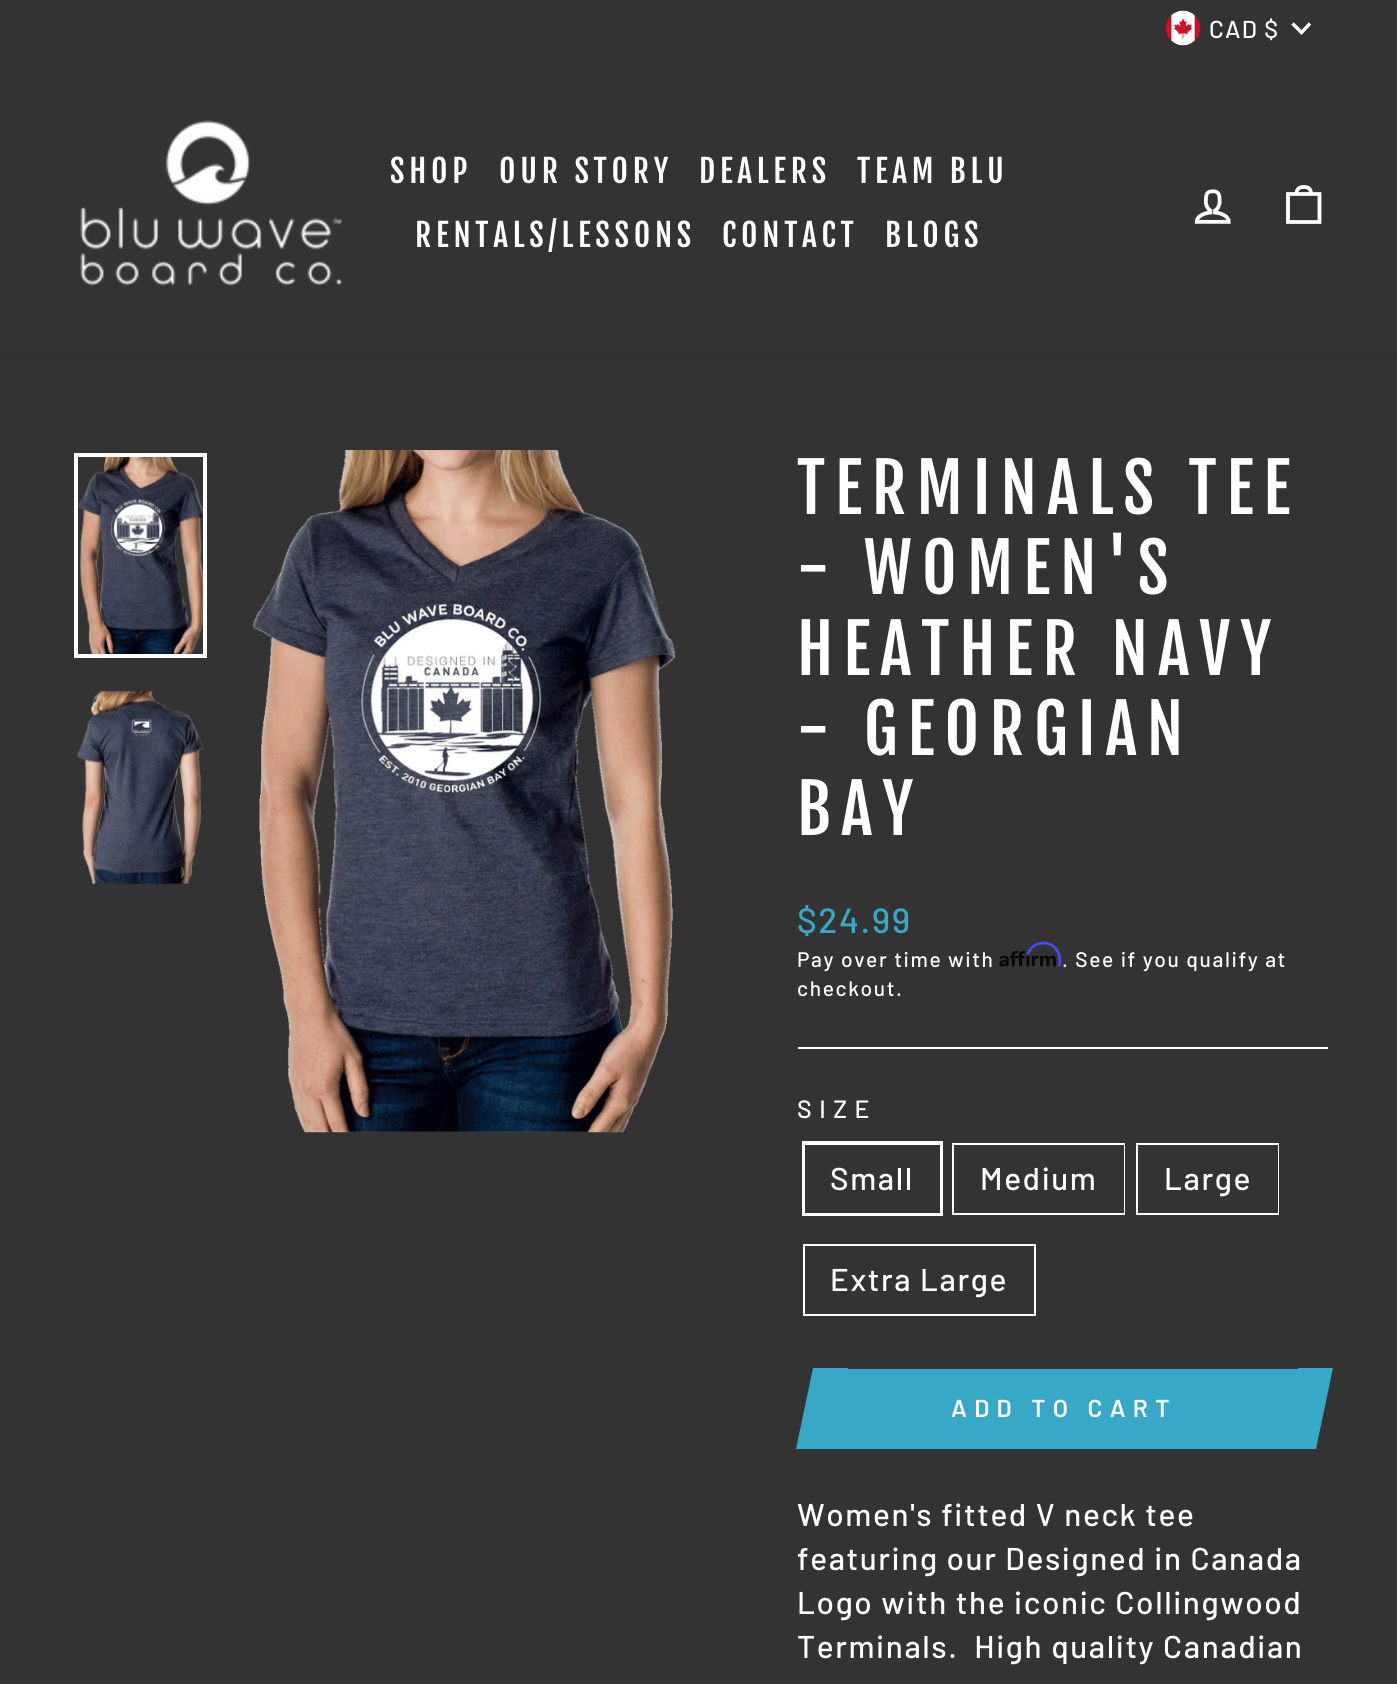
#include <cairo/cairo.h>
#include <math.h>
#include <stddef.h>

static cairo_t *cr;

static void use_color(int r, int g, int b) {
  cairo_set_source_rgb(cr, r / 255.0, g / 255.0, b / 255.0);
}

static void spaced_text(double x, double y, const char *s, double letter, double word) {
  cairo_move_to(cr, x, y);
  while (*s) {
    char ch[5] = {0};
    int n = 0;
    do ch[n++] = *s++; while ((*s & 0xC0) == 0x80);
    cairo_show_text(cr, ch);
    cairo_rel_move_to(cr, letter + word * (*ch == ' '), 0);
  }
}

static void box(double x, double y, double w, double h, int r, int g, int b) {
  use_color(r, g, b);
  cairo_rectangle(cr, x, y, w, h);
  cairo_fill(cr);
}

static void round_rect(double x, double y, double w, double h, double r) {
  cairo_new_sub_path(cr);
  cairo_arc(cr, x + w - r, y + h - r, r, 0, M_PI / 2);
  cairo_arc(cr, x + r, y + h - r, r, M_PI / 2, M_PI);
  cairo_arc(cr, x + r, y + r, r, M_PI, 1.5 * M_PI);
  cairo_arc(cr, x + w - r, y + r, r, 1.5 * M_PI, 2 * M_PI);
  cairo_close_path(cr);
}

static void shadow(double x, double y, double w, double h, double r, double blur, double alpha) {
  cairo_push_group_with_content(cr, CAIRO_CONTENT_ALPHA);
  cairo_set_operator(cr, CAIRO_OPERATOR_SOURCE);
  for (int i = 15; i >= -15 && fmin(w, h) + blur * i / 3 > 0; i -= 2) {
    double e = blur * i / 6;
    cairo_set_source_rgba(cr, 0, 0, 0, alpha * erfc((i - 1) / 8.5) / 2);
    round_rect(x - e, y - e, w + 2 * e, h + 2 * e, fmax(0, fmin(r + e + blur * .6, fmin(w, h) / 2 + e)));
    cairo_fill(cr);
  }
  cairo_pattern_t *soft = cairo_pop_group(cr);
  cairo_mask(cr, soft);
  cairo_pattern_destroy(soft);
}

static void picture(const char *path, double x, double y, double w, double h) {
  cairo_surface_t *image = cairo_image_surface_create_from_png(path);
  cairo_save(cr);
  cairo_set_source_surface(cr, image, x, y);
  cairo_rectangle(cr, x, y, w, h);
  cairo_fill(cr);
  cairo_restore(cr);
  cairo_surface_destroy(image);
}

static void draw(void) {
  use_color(51, 51, 51);
  cairo_paint(cr);
  picture("img_01.png", 1165, 10, 36, 36);
  cairo_new_path(cr);
  cairo_move_to(cr, 1292.5, 23.5);
  cairo_line_to(cr, 1301.5, 32.5);
  cairo_line_to(cr, 1310, 23.5);
  use_color(255, 255, 255);
  cairo_set_line_width(cr, 3.4);
  cairo_stroke(cr);
  use_color(0, 0, 0);
  shadow(0, 54, 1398, 300, 0, 1, 0.2);
  box(0, 54, 1397, 300, 51, 51, 51);
  picture("img_02.png", 80, 120, 262, 166);
  picture("img_03.png", 1194, 189, 37, 35);
  cairo_new_path(cr);
  cairo_move_to(cr, 1288, 194);
  cairo_line_to(cr, 1319.5, 194);
  cairo_line_to(cr, 1319.5, 222);
  cairo_line_to(cr, 1288, 222);
  cairo_close_path(cr);
  cairo_move_to(cr, 1296.5, 194);
  cairo_curve_to(cr, 1296.5, 188.5, 1299.5, 187, 1304, 187);
  cairo_curve_to(cr, 1308, 187, 1311, 188.5, 1311, 194);
  use_color(255, 255, 255);
  cairo_set_line_width(cr, 3.8);
  cairo_stroke(cr);
  picture("img_04.png", 78, 457, 125, 197);
  cairo_rectangle(cr, 76, 455, 129, 201);
  cairo_set_line_width(cr, 4);
  cairo_stroke(cr);
  picture("img_05.png", 77, 691, 127, 193);
  picture("img_06.png", 252, 450, 424, 683);
  picture("img_08.png", 999, 950, 57, 17);
  picture("img_07.png", 1026, 941, 36, 26);
  box(798, 1047, 530, 2, 255, 255, 255);
  cairo_rectangle(cr, 804, 1143, 137, 71);
  cairo_stroke(cr);
  box(805, 1145, 135, 68, 51, 51, 51);
  cairo_rectangle(cr, 953, 1144, 171, 70);
  use_color(255, 255, 255);
  cairo_set_line_width(cr, 2);
  cairo_stroke(cr);
  box(1123, 1145, 1, 68, 51, 51, 51);
  cairo_rectangle(cr, 1137, 1144, 141, 70);
  use_color(255, 255, 255);
  cairo_stroke(cr);
  box(1277, 1145, 1, 68, 51, 51, 51);
  cairo_rectangle(cr, 804, 1245, 231, 70);
  use_color(255, 255, 255);
  cairo_stroke(cr);
  box(831, 1369, 467, 80, 55, 168, 197);
  cairo_new_path(cr);
  cairo_move_to(cr, 813, 1368);
  cairo_line_to(cr, 848, 1368);
  cairo_line_to(cr, 831, 1449);
  cairo_line_to(cr, 796, 1449);
  cairo_close_path(cr);
  cairo_fill(cr);
  cairo_new_path(cr);
  cairo_move_to(cr, 1298, 1368);
  cairo_line_to(cr, 1333, 1368);
  cairo_line_to(cr, 1316, 1449);
  cairo_line_to(cr, 1281, 1449);
  cairo_close_path(cr);
  cairo_fill(cr);
  cairo_select_font_face(cr, "Barlow Medium", CAIRO_FONT_SLANT_NORMAL, CAIRO_FONT_WEIGHT_NORMAL);
  cairo_set_font_size(cr, 24.5);
  use_color(255, 255, 255);
  spaced_text(1209, 38, "CAD $", 1.25, 0);
  cairo_select_font_face(cr, "Fjalla One", CAIRO_FONT_SLANT_NORMAL, CAIRO_FONT_WEIGHT_NORMAL);
  cairo_set_font_size(cr, 31.5);
  spaced_text(390, 183, "SHOP", 4.75, 0);
  spaced_text(499, 183, "OUR STORY", 4.75, 0);
  spaced_text(699, 183, "DEALERS", 4.75, 0);
  spaced_text(857, 183, "TEAM BLU", 4.75, 0);
  spaced_text(415, 247, "RENTALS/LESSONS", 4.75, 0);
  spaced_text(722, 247, "CONTACT", 4.75, 0);
  spaced_text(885, 247, "BLOGS", 4.75, 0);
  cairo_set_font_size(cr, 67);
  spaced_text(797, 514, "TERMINALS TEE", 10, 0);
  spaced_text(797, 594, "- WOMEN'S", 10, 0);
  spaced_text(797, 675, "HEATHER NAVY", 10, 0);
  spaced_text(797, 755, "- GEORGIAN", 10, 0);
  spaced_text(797, 835, "BAY", 10, 0);
  cairo_select_font_face(cr, "Barlow Medium", CAIRO_FONT_SLANT_NORMAL, CAIRO_FONT_WEIGHT_NORMAL);
  cairo_set_font_size(cr, 35);
  use_color(55, 168, 197);
  spaced_text(797, 933, "$24.99", 1.6, 0);
  cairo_set_font_size(cr, 21);
  use_color(255, 255, 255);
  spaced_text(797, 967, "Pay over time with", 1.6, 0);
  spaced_text(1062, 967, ". See if you qualify at", 1.6, 0);
  spaced_text(797, 996, "checkout.", 1.6, 0);
  cairo_set_font_size(cr, 25);
  spaced_text(797, 1118, "SIZE", 7.5, 0);
  cairo_set_font_size(cr, 31.5);
  spaced_text(830, 1190, "Small", 1.6, 0);
  spaced_text(980, 1190, "Medium", 1.6, 0);
  spaced_text(1164, 1190, "Large", 1.6, 0);
  spaced_text(830, 1291, "Extra Large", 1.6, 0);
  cairo_select_font_face(cr, "Barlow SemiBold", CAIRO_FONT_SLANT_NORMAL, CAIRO_FONT_WEIGHT_NORMAL);
  cairo_set_font_size(cr, 24.5);
  spaced_text(951, 1417, "ADD TO CART", 7.3, 0);
  cairo_select_font_face(cr, "Barlow Medium", CAIRO_FONT_SLANT_NORMAL, CAIRO_FONT_WEIGHT_NORMAL);
  cairo_set_font_size(cr, 31.5);
  spaced_text(797, 1526, "Women's fitted V neck tee", 1.6, 0);
  spaced_text(797, 1570, "featuring our Designed in Canada", 1.6, 0);
  spaced_text(797, 1614, "Logo with the iconic Collingwood", 1.6, 0);
  spaced_text(797, 1658, "Terminals.  High quality Canadian", 1.6, 0);
}

int main(void) {
  cairo_surface_t *surface = cairo_image_surface_create(CAIRO_FORMAT_RGB24, 1397, 1684);
  cr = cairo_create(surface);
  cairo_font_options_t *options = cairo_font_options_create();
  cairo_font_options_set_hint_metrics(options, CAIRO_HINT_METRICS_OFF);
  cairo_font_options_set_hint_style(options, CAIRO_HINT_STYLE_NONE);
  cairo_set_font_options(cr, options);
  cairo_set_miter_limit(cr, 4);
  draw();
  cairo_surface_write_to_png(surface, "out.png");
  cairo_font_options_destroy(options);
  cairo_destroy(cr);
  cairo_surface_destroy(surface);
  return 0;
}
